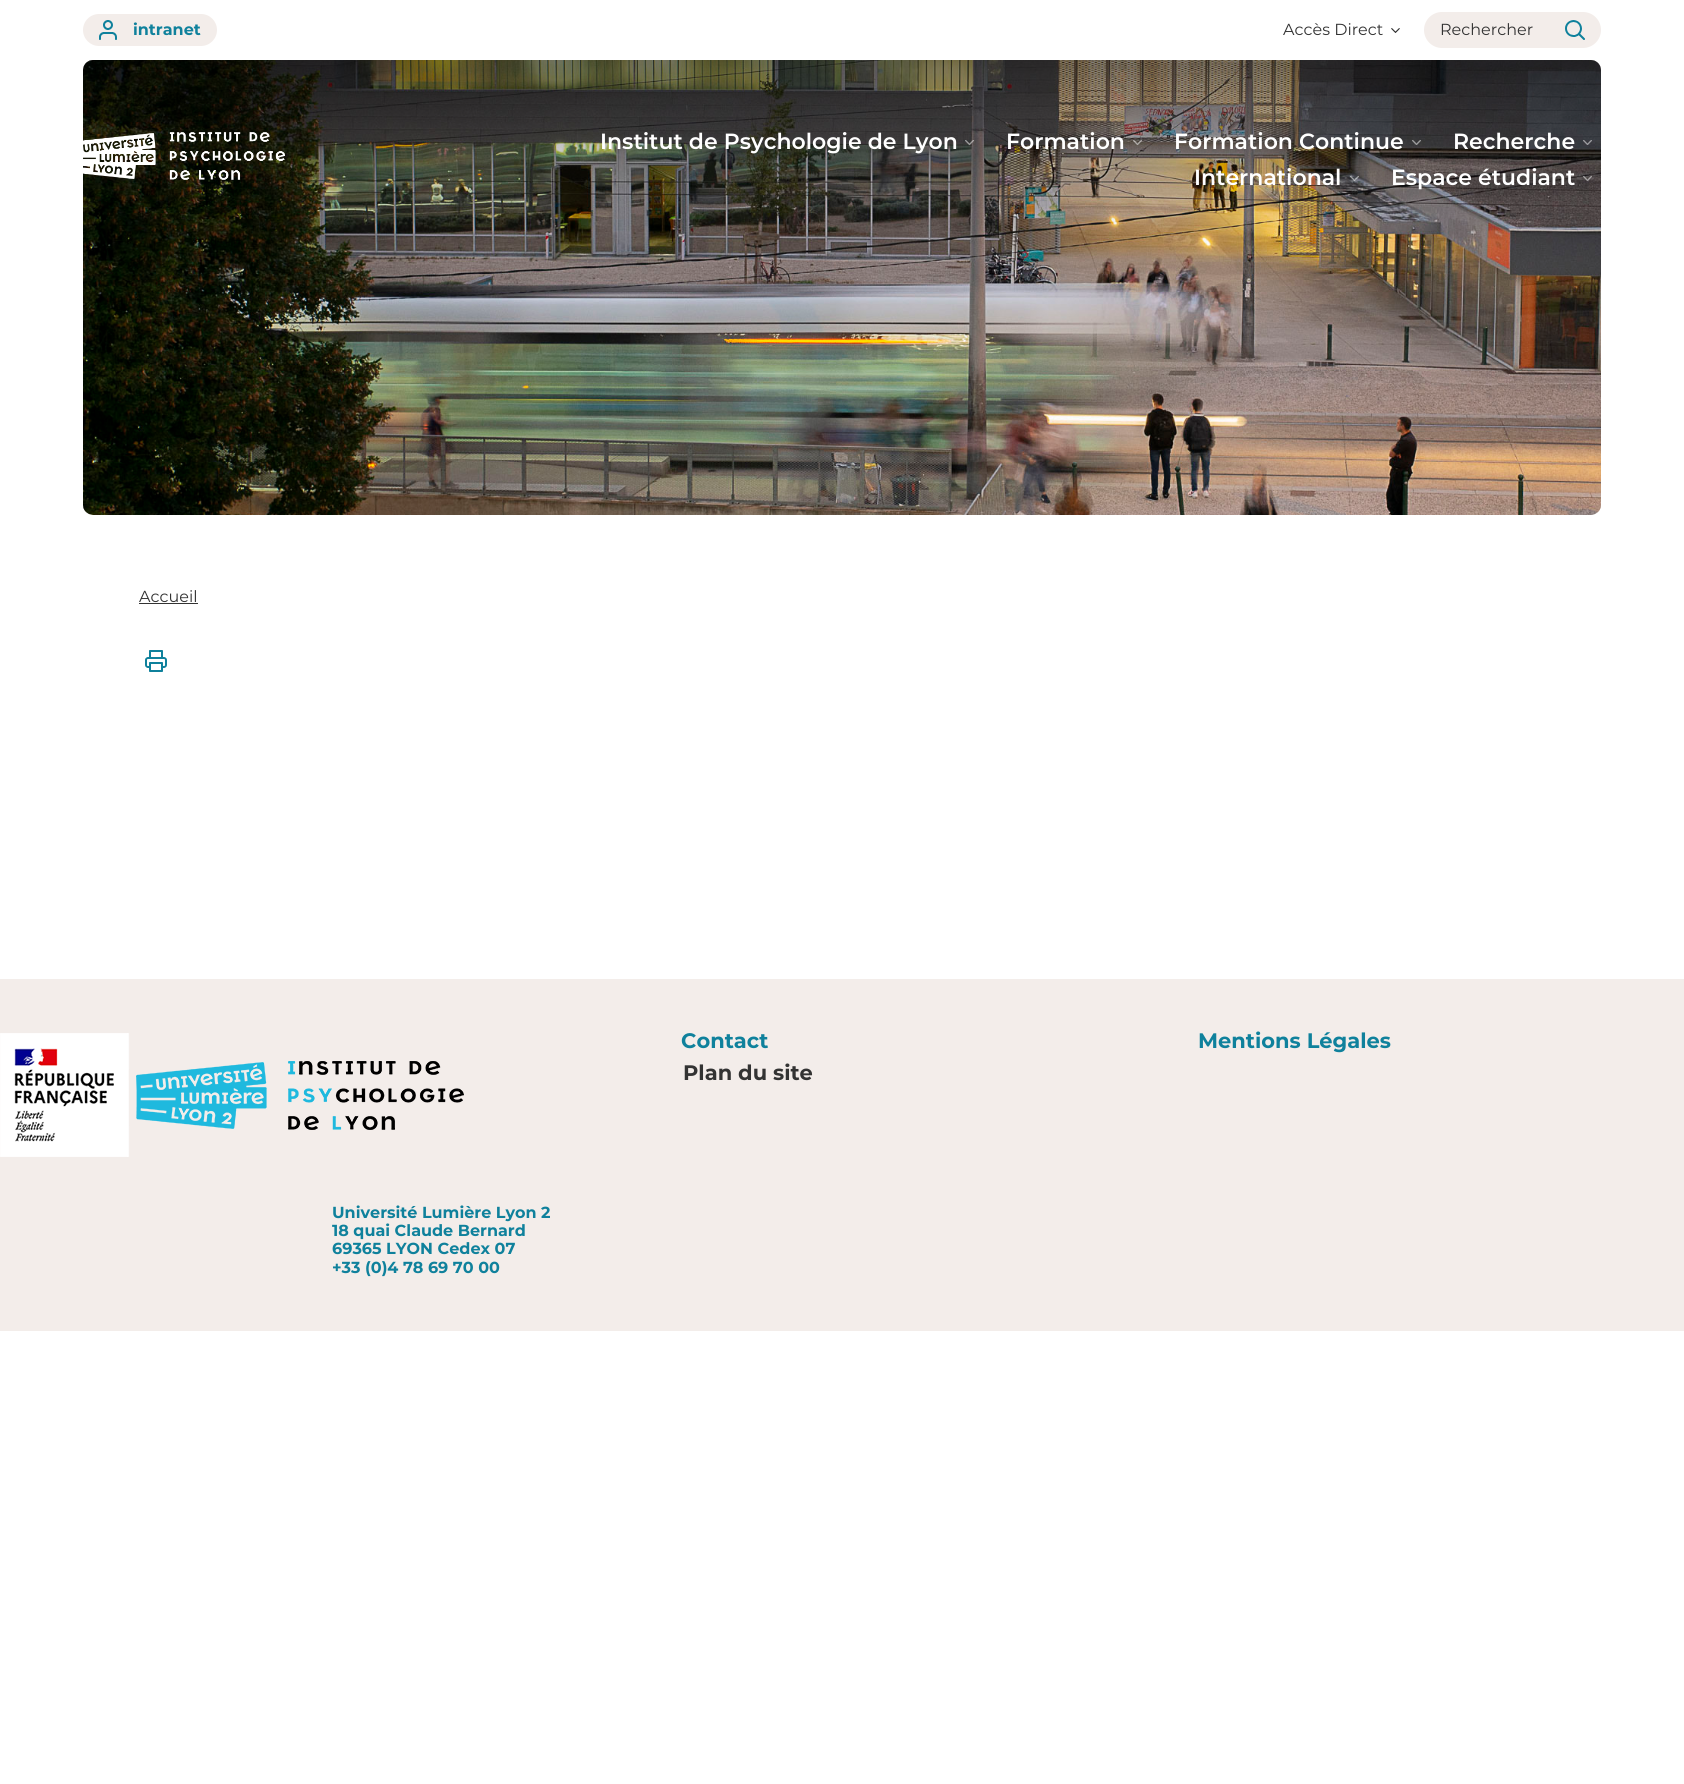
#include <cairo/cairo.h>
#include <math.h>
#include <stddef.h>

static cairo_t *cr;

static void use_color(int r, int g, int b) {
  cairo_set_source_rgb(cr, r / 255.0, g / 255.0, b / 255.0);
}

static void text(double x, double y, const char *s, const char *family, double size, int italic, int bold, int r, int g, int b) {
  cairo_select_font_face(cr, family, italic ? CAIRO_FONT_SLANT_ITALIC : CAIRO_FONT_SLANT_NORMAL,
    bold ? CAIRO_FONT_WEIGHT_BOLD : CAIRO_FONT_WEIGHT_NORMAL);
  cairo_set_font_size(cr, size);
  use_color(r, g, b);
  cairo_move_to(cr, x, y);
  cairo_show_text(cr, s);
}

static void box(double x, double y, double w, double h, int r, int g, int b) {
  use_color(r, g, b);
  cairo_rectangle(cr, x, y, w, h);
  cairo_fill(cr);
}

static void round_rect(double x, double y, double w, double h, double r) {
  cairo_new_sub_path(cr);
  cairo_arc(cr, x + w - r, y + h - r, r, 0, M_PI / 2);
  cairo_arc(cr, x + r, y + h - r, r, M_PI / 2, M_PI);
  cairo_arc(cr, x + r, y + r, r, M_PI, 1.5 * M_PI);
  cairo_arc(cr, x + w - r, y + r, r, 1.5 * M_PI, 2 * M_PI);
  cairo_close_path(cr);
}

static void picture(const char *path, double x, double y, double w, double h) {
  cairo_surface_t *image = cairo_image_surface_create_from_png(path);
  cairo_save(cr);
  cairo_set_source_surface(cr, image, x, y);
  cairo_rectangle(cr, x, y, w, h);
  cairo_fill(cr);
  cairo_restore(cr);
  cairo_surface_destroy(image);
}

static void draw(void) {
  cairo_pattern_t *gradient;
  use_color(255, 255, 255);
  cairo_paint(cr);
  use_color(243, 237, 234);
  round_rect(83, 14, 134, 32, 16);
  cairo_fill(cr);
  picture("img_01.png", 99, 20, 18, 20);
  picture("img_02.png", 1391, 28, 9, 5);
  round_rect(1424, 12, 177, 36, 18);
  cairo_fill(cr);
  picture("img_03.png", 1565, 20, 20, 20);
  round_rect(83, 60, 1518, 455, 10);
  cairo_fill(cr);
  picture("img_04.png", 83, 60, 1518, 455);
  gradient = cairo_pattern_create_linear(842, 60, 842, 260);
  cairo_pattern_add_color_stop_rgba(gradient, 0, 0, 0, 0, 0.5);
  cairo_pattern_add_color_stop_rgba(gradient, 0.19, 0, 0, 0, 0.37);
  cairo_pattern_add_color_stop_rgba(gradient, 0.34, 0, 0, 0, 0.27);
  cairo_pattern_add_color_stop_rgba(gradient, 0.47, 0, 0, 0, 0.19);
  cairo_pattern_add_color_stop_rgba(gradient, 0.56, 0, 0, 0, 0.14);
  cairo_pattern_add_color_stop_rgba(gradient, 0.65, 0, 0, 0, 0.1);
  cairo_pattern_add_color_stop_rgba(gradient, 0.73, 0, 0, 0, 0.06);
  cairo_pattern_add_color_stop_rgba(gradient, 0.8, 0, 0, 0, 0.04);
  cairo_pattern_add_color_stop_rgba(gradient, 0.86, 0, 0, 0, 0.02);
  cairo_pattern_add_color_stop_rgba(gradient, 0.91, 0, 0, 0, 0.01);
  cairo_pattern_add_color_stop_rgba(gradient, 0.95, 0, 0, 0, 0);
  cairo_pattern_add_color_stop_rgba(gradient, 0.98, 0, 0, 0, 0);
  cairo_pattern_add_color_stop_rgba(gradient, 1, 0, 0, 0, 0);
  cairo_set_source(cr, gradient);
  cairo_pattern_destroy(gradient);
  round_rect(83, 60, 1518, 200, 10);
  cairo_fill(cr);
  picture("img_05.png", 83, 132, 203, 48);
  picture("img_06.png", 965, 140, 9, 5);
  picture("img_07.png", 1133, 140, 9, 5);
  picture("img_08.png", 1412, 140, 9, 5);
  picture("img_09.png", 1583, 140, 9, 5);
  picture("img_10.png", 1350, 176, 9, 5);
  picture("img_11.png", 1583, 176, 9, 5);
  box(139, 603, 59, 1, 51, 51, 51);
  picture("img_12.png", 145, 650, 22, 22);
  box(0, 979, 1684, 352, 243, 237, 234);
  picture("img_13.png", 0, 1033, 464, 124);
  text(133, 35, "intranet", "Montserrat", 16, 0, 1, 15, 129, 156);
  text(1283, 35, "Accès Direct", "Montserrat", 16, 0, 0, 51, 51, 51);
  text(1440, 35, "Rechercher", "Montserrat", 16, 0, 0, 51, 51, 51);
  text(600, 149, "Institut de Psychologie de Lyon", "Montserrat SemiBold", 22, 0, 0, 255, 255, 255);
  text(1006, 149, "Formation", "Montserrat SemiBold", 22, 0, 0, 255, 255, 255);
  text(1174, 149, "Formation Continue", "Montserrat SemiBold", 22, 0, 0, 255, 255, 255);
  text(1453, 149, "Recherche", "Montserrat SemiBold", 22, 0, 0, 255, 255, 255);
  text(1194, 185, "International", "Montserrat SemiBold", 22, 0, 0, 255, 255, 255);
  text(1391, 185, "Espace étudiant", "Montserrat SemiBold", 22, 0, 0, 255, 255, 255);
  text(139, 602, "Accueil", "Montserrat", 16, 0, 0, 51, 51, 51);
  text(681, 1048, "Contact", "Montserrat", 21, 0, 1, 15, 129, 156);
  text(1198, 1048, "Mentions Légales", "Montserrat", 21, 0, 1, 15, 129, 156);
  text(683, 1080, "Plan du site", "Montserrat", 21, 0, 1, 51, 51, 51);
  text(332, 1218, "Université Lumière Lyon 2", "Montserrat", 16, 0, 1, 15, 129, 156);
  text(332, 1236, "18 quai Claude Bernard", "Montserrat", 16, 0, 1, 15, 129, 156);
  text(332, 1254, "69365 LYON Cedex 07", "Montserrat", 16, 0, 1, 15, 129, 156);
  text(332, 1273, "+33 (0)4 78 69 70 00", "Montserrat", 16, 0, 1, 15, 129, 156);
}

int main(void) {
  cairo_surface_t *surface = cairo_image_surface_create(CAIRO_FORMAT_RGB24, 1684, 1784);
  cr = cairo_create(surface);
  cairo_font_options_t *options = cairo_font_options_create();
  cairo_font_options_set_hint_metrics(options, CAIRO_HINT_METRICS_OFF);
  cairo_font_options_set_hint_style(options, CAIRO_HINT_STYLE_NONE);
  cairo_set_font_options(cr, options);
  cairo_set_miter_limit(cr, 4);
  draw();
  cairo_surface_write_to_png(surface, "out.png");
  cairo_font_options_destroy(options);
  cairo_destroy(cr);
  cairo_surface_destroy(surface);
  return 0;
}
